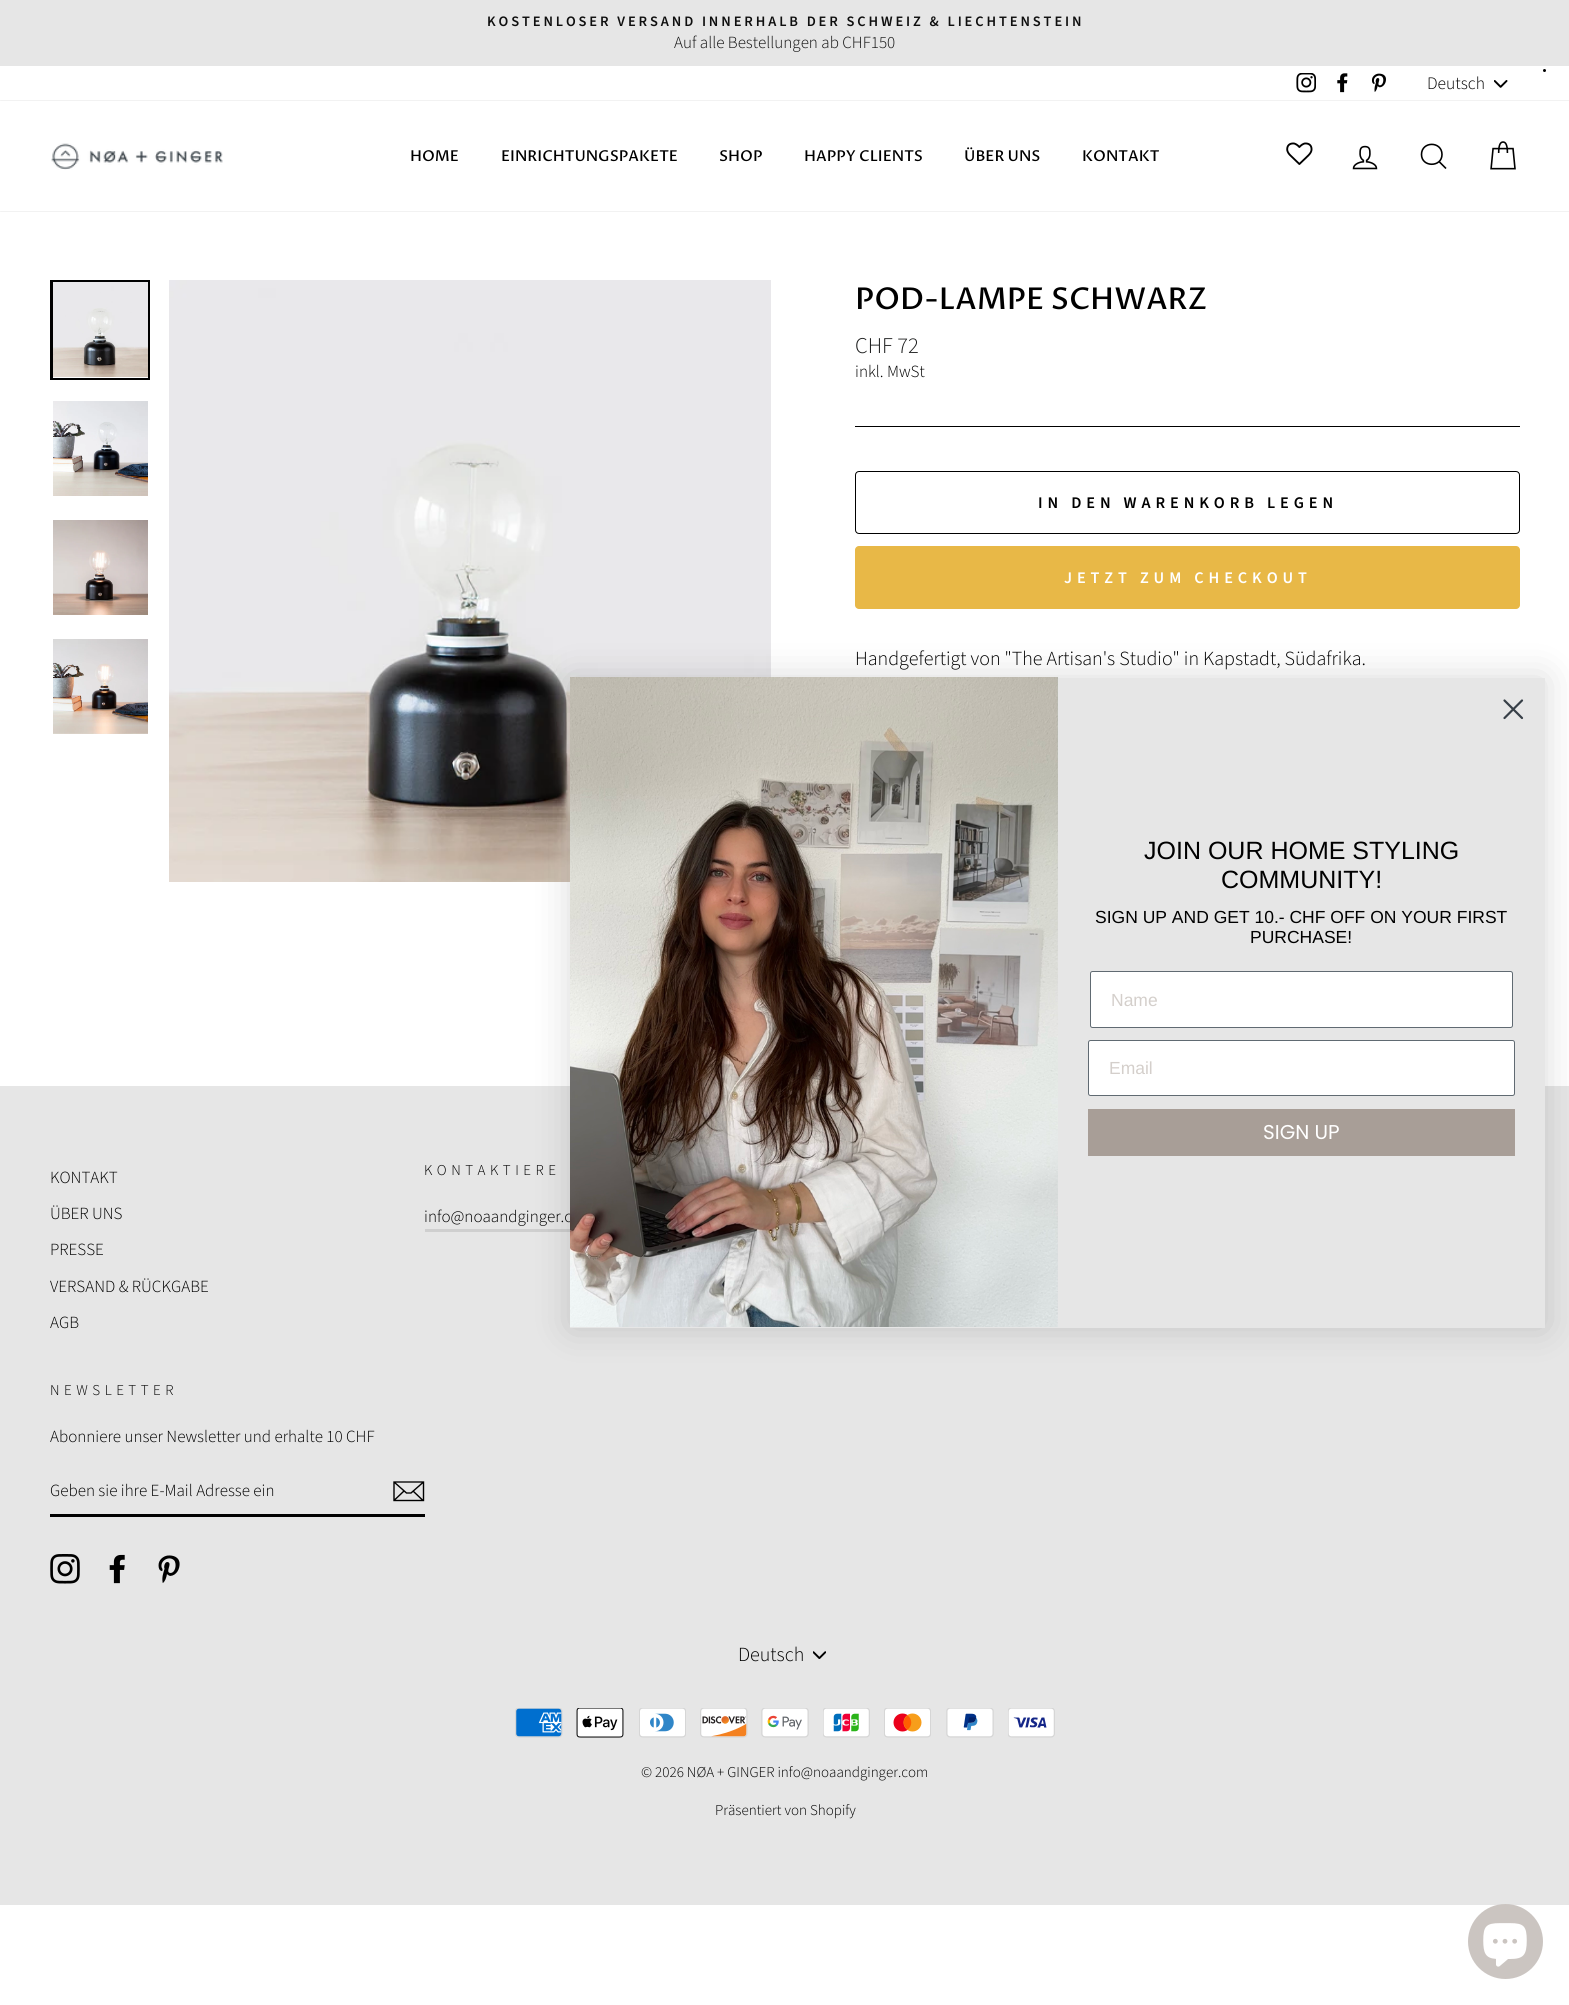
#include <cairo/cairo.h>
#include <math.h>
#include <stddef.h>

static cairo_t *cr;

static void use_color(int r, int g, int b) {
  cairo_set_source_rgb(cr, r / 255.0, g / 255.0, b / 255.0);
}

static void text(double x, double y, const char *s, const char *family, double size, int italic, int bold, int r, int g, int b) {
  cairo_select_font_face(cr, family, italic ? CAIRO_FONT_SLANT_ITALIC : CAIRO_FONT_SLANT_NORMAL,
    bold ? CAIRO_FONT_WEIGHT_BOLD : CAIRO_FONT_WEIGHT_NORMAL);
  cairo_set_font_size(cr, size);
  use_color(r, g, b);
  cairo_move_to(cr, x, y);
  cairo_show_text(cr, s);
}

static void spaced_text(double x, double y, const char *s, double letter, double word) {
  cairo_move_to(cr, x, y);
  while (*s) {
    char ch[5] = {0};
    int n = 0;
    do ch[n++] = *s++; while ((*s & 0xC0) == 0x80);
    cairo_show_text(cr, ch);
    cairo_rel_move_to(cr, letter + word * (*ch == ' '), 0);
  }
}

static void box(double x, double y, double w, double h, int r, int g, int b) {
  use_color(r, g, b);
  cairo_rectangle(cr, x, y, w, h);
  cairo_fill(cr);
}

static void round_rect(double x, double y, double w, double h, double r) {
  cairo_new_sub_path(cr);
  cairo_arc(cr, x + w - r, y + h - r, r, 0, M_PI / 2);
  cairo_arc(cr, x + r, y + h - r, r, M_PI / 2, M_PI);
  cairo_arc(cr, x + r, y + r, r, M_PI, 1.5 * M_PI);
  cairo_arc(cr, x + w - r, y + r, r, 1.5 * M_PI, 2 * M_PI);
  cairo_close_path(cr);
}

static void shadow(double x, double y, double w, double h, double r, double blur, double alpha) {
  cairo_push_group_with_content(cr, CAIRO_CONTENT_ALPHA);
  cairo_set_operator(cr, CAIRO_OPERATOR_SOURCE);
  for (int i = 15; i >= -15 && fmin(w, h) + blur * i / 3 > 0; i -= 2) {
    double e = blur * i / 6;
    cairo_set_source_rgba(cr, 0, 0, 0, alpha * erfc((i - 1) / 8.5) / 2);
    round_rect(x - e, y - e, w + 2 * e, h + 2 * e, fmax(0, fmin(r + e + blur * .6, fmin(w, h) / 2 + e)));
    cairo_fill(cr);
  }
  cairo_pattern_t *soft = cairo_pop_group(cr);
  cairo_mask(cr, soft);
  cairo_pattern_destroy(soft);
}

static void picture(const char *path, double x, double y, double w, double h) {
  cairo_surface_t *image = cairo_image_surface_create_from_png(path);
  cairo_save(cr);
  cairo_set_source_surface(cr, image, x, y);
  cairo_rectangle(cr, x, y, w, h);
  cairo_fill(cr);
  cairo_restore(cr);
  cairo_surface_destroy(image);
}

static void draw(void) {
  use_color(255, 255, 255);
  cairo_paint(cr);
  box(0, 0, 1569, 66, 230, 230, 230);
  picture("img_01.png", 1296, 73, 20, 20);
  picture("img_02.png", 1337, 73, 11, 20);
  picture("img_03.png", 1371, 73, 15, 19);
  picture("img_04.png", 1494, 80, 14, 8);
  use_color(0, 0, 0);
  shadow(0, 101, 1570, 110, 0, 0.5, 0.2);
  box(0, 101, 1569, 110, 255, 255, 255);
  picture("img_05.png", 51, 143, 172, 27);
  picture("img_06.png", 1286, 142, 27, 23);
  picture("img_07.png", 1352, 145, 26, 25);
  cairo_new_path(cr);
  cairo_move_to(cr, 1442, 154.5);
  cairo_curve_to(cr, 1442, 167.5, 1421.5, 167.5, 1421.5, 154.5);
  cairo_curve_to(cr, 1421.5, 141, 1442, 141, 1442, 154.5);
  cairo_close_path(cr);
  cairo_move_to(cr, 1446, 168.5);
  cairo_line_to(cr, 1439, 161.5);
  use_color(0, 0, 0);
  cairo_set_line_width(cr, 1.6);
  cairo_stroke(cr);
  picture("img_08.png", 1490, 141, 26, 29);
  cairo_rectangle(cr, 51.5, 281.5, 97, 97);
  cairo_set_line_width(cr, 3);
  cairo_stroke(cr);
  box(53, 377, 95, 1, 255, 255, 255);
  picture("img_09.png", 53, 282, 95, 95);
  picture("img_10.png", 53, 401, 95, 95);
  picture("img_11.png", 53, 520, 95, 95);
  picture("img_12.png", 53, 639, 95, 95);
  picture("img_13.png", 169, 280, 602, 602);
  box(855, 426, 665, 1, 0, 0, 0);
  round_rect(855.5, 471.5, 664, 62, 3.5);
  cairo_set_line_width(cr, 1);
  cairo_stroke(cr);
  use_color(232, 184, 71);
  round_rect(855, 546, 665, 63, 4);
  cairo_fill(cr);
  box(0, 1086, 1569, 819, 230, 230, 230);
  box(425, 1229, 145, 3, 207, 207, 207);
  box(50, 1514, 375, 3, 0, 0, 0);
  cairo_new_path(cr);
  cairo_move_to(cr, 423.5, 1500.5);
  cairo_line_to(cr, 394, 1500.5);
  cairo_line_to(cr, 394, 1482);
  cairo_line_to(cr, 423.5, 1482);
  cairo_close_path(cr);
  cairo_move_to(cr, 394, 1482);
  cairo_line_to(cr, 406.5, 1493);
  cairo_line_to(cr, 411, 1493);
  cairo_line_to(cr, 423.5, 1482);
  cairo_move_to(cr, 404, 1491);
  cairo_line_to(cr, 394.5, 1500);
  cairo_move_to(cr, 423, 1500.5);
  cairo_line_to(cr, 413, 1491);
  cairo_set_line_width(cr, 1.4);
  cairo_stroke(cr);
  picture("img_14.png", 50, 1554, 30, 30);
  picture("img_15.png", 109, 1554, 16, 30);
  picture("img_16.png", 158, 1555, 22, 28);
  picture("img_17.png", 813, 1651, 13, 8);
  picture("img_18.png", 515, 1708, 48, 30);
  picture("img_19.png", 576, 1708, 48, 30);
  picture("img_20.png", 639, 1708, 47, 30);
  picture("img_21.png", 700, 1708, 48, 30);
  picture("img_22.png", 761, 1708, 48, 30);
  picture("img_23.png", 823, 1708, 47, 30);
  picture("img_24.png", 884, 1708, 47, 30);
  picture("img_25.png", 946, 1708, 48, 30);
  picture("img_26.png", 1008, 1708, 47, 30);
  cairo_arc(cr, 1544.5, 70.5, 1.5, 0, 2 * M_PI);
  cairo_fill(cr);
  use_color(0, 0, 0);
  shadow(570, 678, 975, 650, 0, 19, 0.15);
  use_color(203, 197, 193);
  cairo_arc(cr, 1505.5, 1941.5, 37.5, 0, 2 * M_PI);
  cairo_fill(cr);
  picture("img_28.png", 1483, 1923, 44, 44);
  cairo_select_font_face(cr, "Source Sans Pro SemiBold", CAIRO_FONT_SLANT_NORMAL, CAIRO_FONT_WEIGHT_NORMAL);
  cairo_set_font_size(cr, 14.45);
  use_color(15, 15, 15);
  spaced_text(487, 26, "KOSTENLOSER VERSAND INNERHALB DER SCHWEIZ & LIECHTENSTEIN", 2.9, 0);
  text(674, 48, "Auf alle Bestellungen ab CHF150", "Source Sans Pro Light", 17, 0, 0, 15, 15, 15);
  text(1427, 89, "Deutsch", "Source Sans Pro Light", 17.5, 0, 0, 0, 0, 0);
  text(410, 161, "HOME", "Proza Libre Medium", 15, 0, 0, 0, 0, 0);
  text(501, 161, "EINRICHTUNGSPAKETE", "Proza Libre Medium", 15, 0, 0, 0, 0, 0);
  text(719, 161, "SHOP", "Proza Libre Medium", 15, 0, 0, 0, 0, 0);
  text(804, 161, "HAPPY CLIENTS", "Proza Libre Medium", 15, 0, 0, 0, 0, 0);
  text(964, 161, "ÜBER UNS", "Proza Libre Medium", 15, 0, 0, 0, 0, 0);
  text(1082, 161, "KONTAKT", "Proza Libre Medium", 15, 0, 0, 0, 0, 0);
  text(855, 309, "POD-LAMPE SCHWARZ", "Proza Libre Medium", 30.1, 0, 0, 0, 0, 0);
  text(855, 353, "CHF 72", "Source Sans Pro Light", 22.5, 0, 0, 28, 29, 29);
  text(855, 377, "inkl. MwSt", "Source Sans Pro Light", 17, 0, 0, 0, 0, 0);
  cairo_select_font_face(cr, "Source Sans Pro SemiBold", CAIRO_FONT_SLANT_NORMAL, CAIRO_FONT_WEIGHT_NORMAL);
  cairo_set_font_size(cr, 16.25);
  spaced_text(1038, 508, "IN DEN WARENKORB LEGEN", 4.9, 0);
  use_color(255, 255, 255);
  spaced_text(1064, 583, "JETZT ZUM CHECKOUT", 4.9, 0);
  text(855, 665, "Handgefertigt von \"The Artisan's Studio\" in Kapstadt, Südafrika.", "Source Sans Pro Light", 20, 0, 0, 0, 0, 0);
  text(50, 1183, "KONTAKT", "Source Sans Pro Light", 17, 0, 0, 0, 0, 0);
  text(50, 1219, "ÜBER UNS", "Source Sans Pro Light", 17, 0, 0, 0, 0, 0);
  text(50, 1255, "PRESSE", "Source Sans Pro Light", 17, 0, 0, 0, 0, 0);
  text(50, 1292, "VERSAND & RÜCKGABE", "Source Sans Pro Light", 17, 0, 0, 0, 0, 0);
  text(50, 1328, "AGB", "Source Sans Pro Light", 17, 0, 0, 0, 0, 0);
  cairo_set_font_size(cr, 15);
  spaced_text(424, 1175, "KONTAKTIERE", 4.5, 0);
  text(424, 1222, "info@noaandginger.c", "Source Sans Pro Light", 17, 0, 0, 0, 0, 0);
  cairo_set_font_size(cr, 15);
  spaced_text(50, 1395, "NEWSLETTER", 4.5, 0);
  text(50, 1442, "Abonniere unser Newsletter und erhalte 10 CHF", "Source Sans Pro Light", 17, 0, 0, 0, 0, 0);
  text(50, 1496, "Geben sie ihre E-Mail Adresse ein", "Source Sans Pro Light", 17, 0, 0, 0, 0, 0);
  text(738, 1661, "Deutsch", "Source Sans Pro Light", 20, 0, 0, 0, 0, 0);
  text(641, 1777, "© 2026 NØA + GINGER info@noaandginger.com", "Source Sans Pro Light", 15, 0, 0, 0, 0, 0);
  text(715, 1815, "Präsentiert von Shopify", "Source Sans Pro Light", 15, 0, 0, 0, 0, 0);
  box(570, 678, 975, 650, 230, 230, 230);
  cairo_new_path(cr);
  cairo_move_to(cr, 1504.5, 700.5);
  cairo_line_to(cr, 1522, 718);
  cairo_move_to(cr, 1504.5, 718);
  cairo_line_to(cr, 1522, 700.5);
  cairo_close_path(cr);
  use_color(55, 63, 71);
  cairo_set_line_width(cr, 2.2);
  cairo_set_line_cap(cr, CAIRO_LINE_CAP_ROUND);
  cairo_set_line_join(cr, CAIRO_LINE_JOIN_ROUND);
  cairo_stroke(cr);
  picture("img_27.png", 570, 677, 488, 650);
  text(1144, 859, "JOIN OUR HOME STYLING", "Liberation Sans", 25, 0, 0, 0, 0, 0);
  text(1221, 888, "COMMUNITY!", "Liberation Sans", 25, 0, 0, 0, 0, 0);
  text(1095, 923, "SIGN UP AND GET 10.- CHF OFF ON YOUR FIRST", "Liberation Sans", 17.5, 0, 0, 0, 0, 0);
  text(1250, 943, "PURCHASE!", "Liberation Sans", 17.5, 0, 0, 0, 0, 0);
  use_color(255, 255, 255);
  round_rect(1090.5, 971.5, 422, 56, 2);
  cairo_fill_preserve(cr);
  use_color(96, 106, 114);
  cairo_set_line_width(cr, 1);
  cairo_set_line_cap(cr, CAIRO_LINE_CAP_BUTT);
  cairo_set_line_join(cr, CAIRO_LINE_JOIN_MITER);
  cairo_stroke(cr);
  text(1111, 1006, "Name", "Liberation Sans", 17.5, 0, 0, 212, 207, 203);
  use_color(255, 255, 255);
  round_rect(1088.5, 1040.5, 426, 55, 2);
  cairo_fill_preserve(cr);
  use_color(96, 106, 114);
  cairo_stroke(cr);
  text(1109, 1074, "Email", "Liberation Sans", 17.5, 0, 0, 212, 207, 203);
  box(1088, 1109, 427, 47, 168, 158, 151);
  text(1263, 1139, "SIGN UP", "Poppins", 20, 0, 0, 255, 255, 255);
}

int main(void) {
  cairo_surface_t *surface = cairo_image_surface_create(CAIRO_FORMAT_RGB24, 1569, 2005);
  cr = cairo_create(surface);
  cairo_font_options_t *options = cairo_font_options_create();
  cairo_font_options_set_hint_metrics(options, CAIRO_HINT_METRICS_OFF);
  cairo_font_options_set_hint_style(options, CAIRO_HINT_STYLE_NONE);
  cairo_set_font_options(cr, options);
  cairo_set_miter_limit(cr, 4);
  draw();
  cairo_surface_write_to_png(surface, "out.png");
  cairo_font_options_destroy(options);
  cairo_destroy(cr);
  cairo_surface_destroy(surface);
  return 0;
}
